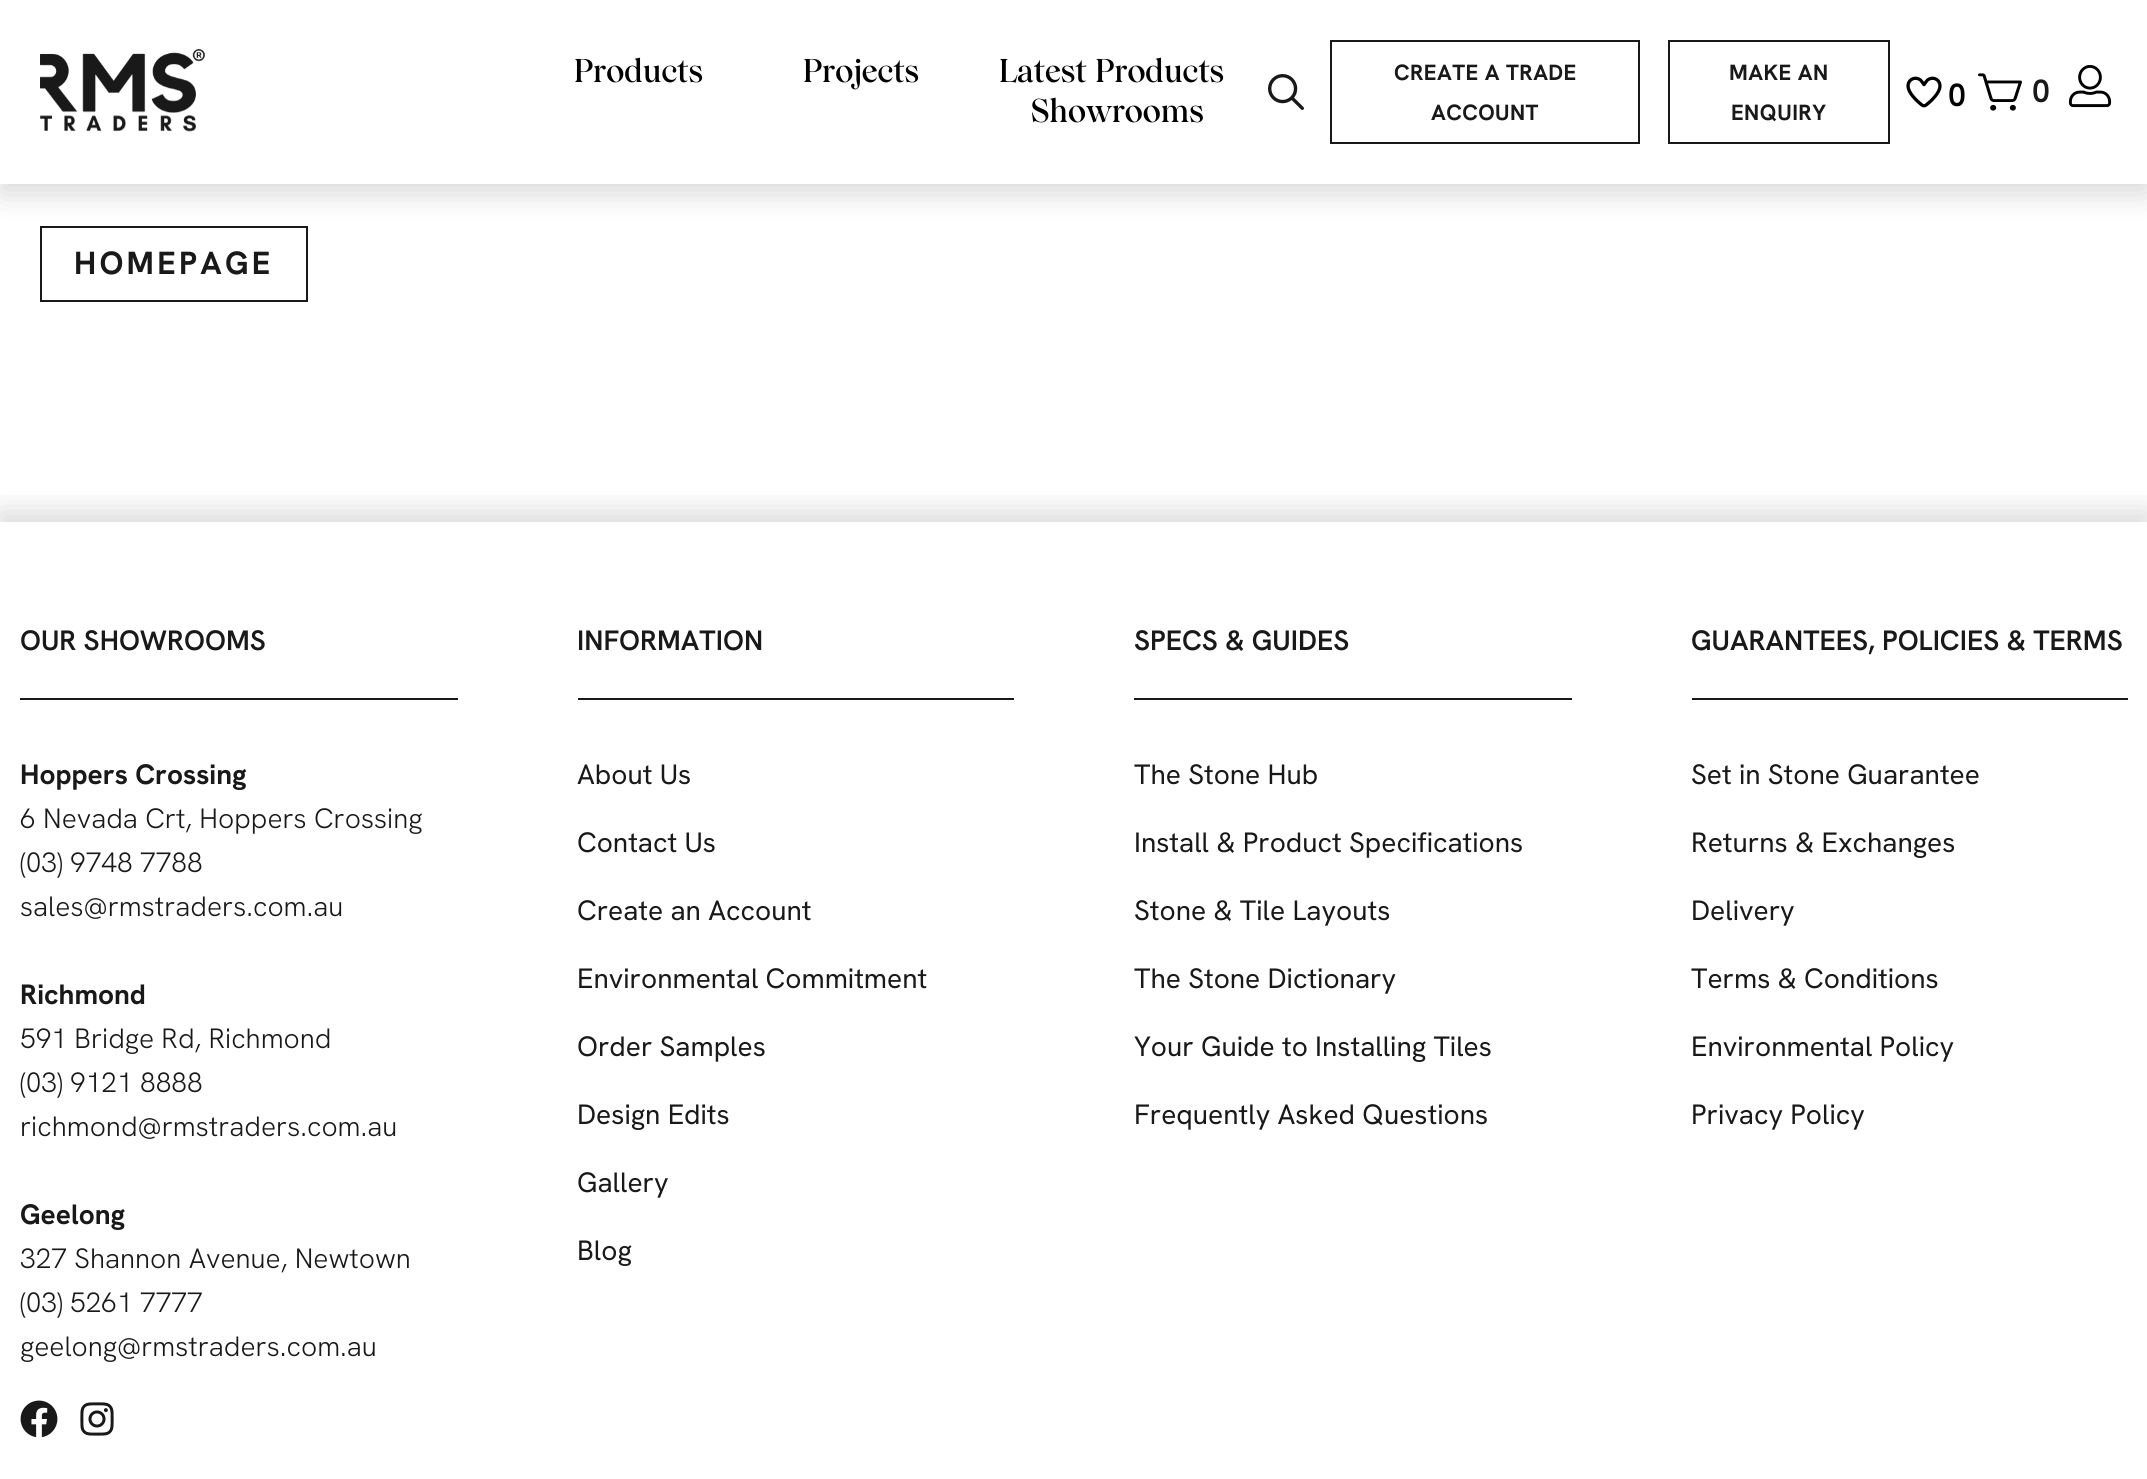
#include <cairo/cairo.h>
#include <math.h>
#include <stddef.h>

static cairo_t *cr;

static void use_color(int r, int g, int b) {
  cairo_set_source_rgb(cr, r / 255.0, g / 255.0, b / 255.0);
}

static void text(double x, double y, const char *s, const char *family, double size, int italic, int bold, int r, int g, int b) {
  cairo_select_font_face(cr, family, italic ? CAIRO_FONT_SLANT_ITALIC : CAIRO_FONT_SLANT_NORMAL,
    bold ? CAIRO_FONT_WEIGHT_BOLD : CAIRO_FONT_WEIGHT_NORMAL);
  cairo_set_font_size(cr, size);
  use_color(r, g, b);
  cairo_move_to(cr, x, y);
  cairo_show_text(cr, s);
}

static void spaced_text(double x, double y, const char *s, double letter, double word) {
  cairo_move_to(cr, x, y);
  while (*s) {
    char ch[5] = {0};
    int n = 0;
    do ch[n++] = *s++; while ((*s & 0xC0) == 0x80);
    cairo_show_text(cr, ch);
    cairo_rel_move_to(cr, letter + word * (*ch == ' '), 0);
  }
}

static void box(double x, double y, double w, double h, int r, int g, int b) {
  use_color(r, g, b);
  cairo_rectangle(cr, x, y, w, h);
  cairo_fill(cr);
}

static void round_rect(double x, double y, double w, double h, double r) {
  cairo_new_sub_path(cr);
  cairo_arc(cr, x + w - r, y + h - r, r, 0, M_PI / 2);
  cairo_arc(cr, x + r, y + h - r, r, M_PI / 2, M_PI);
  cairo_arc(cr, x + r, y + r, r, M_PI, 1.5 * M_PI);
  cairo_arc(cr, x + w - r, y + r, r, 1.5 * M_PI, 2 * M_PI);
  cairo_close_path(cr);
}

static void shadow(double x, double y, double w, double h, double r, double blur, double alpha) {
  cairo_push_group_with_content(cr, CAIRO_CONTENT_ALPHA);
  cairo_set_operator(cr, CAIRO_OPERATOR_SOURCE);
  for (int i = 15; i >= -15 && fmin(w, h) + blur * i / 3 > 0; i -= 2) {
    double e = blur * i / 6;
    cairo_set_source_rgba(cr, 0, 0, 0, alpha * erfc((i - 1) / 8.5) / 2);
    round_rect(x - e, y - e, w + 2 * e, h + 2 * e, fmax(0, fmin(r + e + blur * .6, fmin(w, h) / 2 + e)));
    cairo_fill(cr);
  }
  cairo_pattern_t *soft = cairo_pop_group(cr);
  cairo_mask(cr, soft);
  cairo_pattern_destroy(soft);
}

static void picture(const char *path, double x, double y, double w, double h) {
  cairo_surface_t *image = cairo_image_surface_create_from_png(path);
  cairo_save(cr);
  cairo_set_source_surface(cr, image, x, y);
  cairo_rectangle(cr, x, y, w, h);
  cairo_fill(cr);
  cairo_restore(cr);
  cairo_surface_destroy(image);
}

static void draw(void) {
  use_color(255, 255, 255);
  cairo_paint(cr);
  cairo_rectangle(cr, 41, 227, 266, 74);
  use_color(26, 25, 25);
  cairo_stroke(cr);
  use_color(0, 0, 0);
  shadow(0, 10, 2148, 184, 0, 15, 0.15);
  box(0, 0, 2147, 184, 255, 255, 255);
  picture("img_01.png", 40, 48, 166, 84);
  picture("img_02.png", 1268, 74, 36, 36);
  cairo_rectangle(cr, 1331, 41, 308, 102);
  use_color(26, 25, 25);
  cairo_stroke(cr);
  cairo_rectangle(cr, 1669, 41, 220, 102);
  cairo_stroke(cr);
  picture("img_03.png", 1906, 76, 36, 32);
  picture("img_04.png", 1978, 73, 44, 38);
  picture("img_05.png", 2068, 65, 44, 43);
  cairo_save(cr);
  cairo_rectangle(cr, 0, 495, 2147, 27);
  cairo_clip(cr);
  use_color(0, 0, 0);
  shadow(0, 512, 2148, 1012, 0, 15, 0.15);
  cairo_restore(cr);
  box(20, 698, 438, 2, 26, 25, 25);
  picture("img_06.png", 20, 1400, 38, 38);
  picture("img_07.png", 80, 1402, 34, 34);
  box(578, 698, 436, 2, 26, 25, 25);
  box(1134, 698, 438, 2, 26, 25, 25);
  box(1692, 698, 436, 2, 26, 25, 25);
  text(574, 82, "Products", "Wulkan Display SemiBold", 32, 0, 0, 0, 0, 0);
  text(803, 82, "Projects", "Wulkan Display SemiBold", 32, 0, 0, 0, 0, 0);
  text(999, 82, "Latest Products", "Wulkan Display SemiBold", 32, 0, 0, 0, 0, 0);
  text(1031, 122, "Showrooms", "Wulkan Display SemiBold", 32, 0, 0, 0, 0, 0);
  cairo_select_font_face(cr, "Hanken Grotesk", CAIRO_FONT_SLANT_NORMAL, CAIRO_FONT_WEIGHT_BOLD);
  cairo_set_font_size(cr, 22);
  use_color(26, 25, 25);
  spaced_text(1394, 80, "CREATE A TRADE", 0.4, 0);
  spaced_text(1431, 120, "ACCOUNT", 0.4, 0);
  spaced_text(1729, 80, "MAKE AN", 0.4, 0);
  spaced_text(1731, 120, "ENQUIRY", 0.4, 0);
  text(1948, 106, "0", "Hanken Grotesk SemiBold", 32, 0, 0, 0, 0, 0);
  text(2032, 102, "0", "Hanken Grotesk SemiBold", 32, 0, 0, 26, 25, 25);
  cairo_select_font_face(cr, "Hanken Grotesk", CAIRO_FONT_SLANT_NORMAL, CAIRO_FONT_WEIGHT_BOLD);
  spaced_text(74, 274, "HOMEPAGE", 3.25, 0);
  text(20, 650, "OUR SHOWROOMS", "Hanken Grotesk SemiBold", 28, 0, 0, 26, 25, 25);
  text(20, 784, "Hoppers Crossing", "Hanken Grotesk", 28, 0, 1, 26, 25, 25);
  text(20, 828, "6 Nevada Crt, Hoppers Crossing", "Hanken Grotesk Light", 28, 0, 0, 26, 25, 25);
  text(20, 872, "(03) 9748 7788", "Hanken Grotesk Light", 28, 0, 0, 26, 25, 25);
  text(20, 916, "sales@rmstraders.com.au", "Hanken Grotesk Light", 28, 0, 0, 26, 25, 25);
  text(20, 1004, "Richmond", "Hanken Grotesk", 28, 0, 1, 26, 25, 25);
  text(20, 1048, "591 Bridge Rd, Richmond", "Hanken Grotesk Light", 28, 0, 0, 26, 25, 25);
  text(20, 1092, "(03) 9121 8888", "Hanken Grotesk Light", 28, 0, 0, 26, 25, 25);
  text(20, 1136, "richmond@rmstraders.com.au", "Hanken Grotesk Light", 28, 0, 0, 26, 25, 25);
  text(20, 1224, "Geelong", "Hanken Grotesk", 28, 0, 1, 26, 25, 25);
  text(20, 1268, "327 Shannon Avenue, Newtown", "Hanken Grotesk Light", 28, 0, 0, 26, 25, 25);
  text(20, 1312, "(03) 5261 7777", "Hanken Grotesk Light", 28, 0, 0, 26, 25, 25);
  text(20, 1356, "geelong@rmstraders.com.au", "Hanken Grotesk Light", 28, 0, 0, 26, 25, 25);
  text(577, 650, "INFORMATION", "Hanken Grotesk SemiBold", 28, 0, 0, 26, 25, 25);
  text(577, 784, "About Us", "Hanken Grotesk", 28, 0, 0, 26, 25, 25);
  text(577, 852, "Contact Us", "Hanken Grotesk", 28, 0, 0, 26, 25, 25);
  text(577, 920, "Create an Account", "Hanken Grotesk", 28, 0, 0, 26, 25, 25);
  text(577, 988, "Environmental Commitment", "Hanken Grotesk", 28, 0, 0, 26, 25, 25);
  text(577, 1056, "Order Samples", "Hanken Grotesk", 28, 0, 0, 26, 25, 25);
  text(577, 1124, "Design Edits", "Hanken Grotesk", 28, 0, 0, 26, 25, 25);
  text(577, 1192, "Gallery", "Hanken Grotesk", 28, 0, 0, 26, 25, 25);
  text(577, 1260, "Blog", "Hanken Grotesk", 28, 0, 0, 26, 25, 25);
  text(1134, 650, "SPECS & GUIDES", "Hanken Grotesk SemiBold", 28, 0, 0, 26, 25, 25);
  text(1134, 784, "The Stone Hub", "Hanken Grotesk", 28, 0, 0, 26, 25, 25);
  text(1134, 852, "Install & Product Specifications", "Hanken Grotesk", 28, 0, 0, 26, 25, 25);
  text(1134, 920, "Stone & Tile Layouts", "Hanken Grotesk", 28, 0, 0, 26, 25, 25);
  text(1134, 988, "The Stone Dictionary", "Hanken Grotesk", 28, 0, 0, 26, 25, 25);
  text(1134, 1056, "Your Guide to Installing Tiles", "Hanken Grotesk", 28, 0, 0, 26, 25, 25);
  text(1134, 1124, "Frequently Asked Questions", "Hanken Grotesk", 28, 0, 0, 26, 25, 25);
  text(1691, 650, "GUARANTEES, POLICIES & TERMS", "Hanken Grotesk SemiBold", 28, 0, 0, 26, 25, 25);
  text(1691, 784, "Set in Stone Guarantee", "Hanken Grotesk", 28, 0, 0, 26, 25, 25);
  text(1691, 852, "Returns & Exchanges", "Hanken Grotesk", 28, 0, 0, 26, 25, 25);
  text(1691, 920, "Delivery", "Hanken Grotesk", 28, 0, 0, 26, 25, 25);
  text(1691, 988, "Terms & Conditions", "Hanken Grotesk", 28, 0, 0, 26, 25, 25);
  text(1691, 1056, "Environmental Policy", "Hanken Grotesk", 28, 0, 0, 26, 25, 25);
  text(1691, 1124, "Privacy Policy", "Hanken Grotesk", 28, 0, 0, 26, 25, 25);
}

int main(void) {
  cairo_surface_t *surface = cairo_image_surface_create(CAIRO_FORMAT_RGB24, 2147, 1479);
  cr = cairo_create(surface);
  cairo_font_options_t *options = cairo_font_options_create();
  cairo_font_options_set_hint_metrics(options, CAIRO_HINT_METRICS_OFF);
  cairo_font_options_set_hint_style(options, CAIRO_HINT_STYLE_NONE);
  cairo_set_font_options(cr, options);
  cairo_set_miter_limit(cr, 4);
  draw();
  cairo_surface_write_to_png(surface, "out.png");
  cairo_font_options_destroy(options);
  cairo_destroy(cr);
  cairo_surface_destroy(surface);
  return 0;
}
